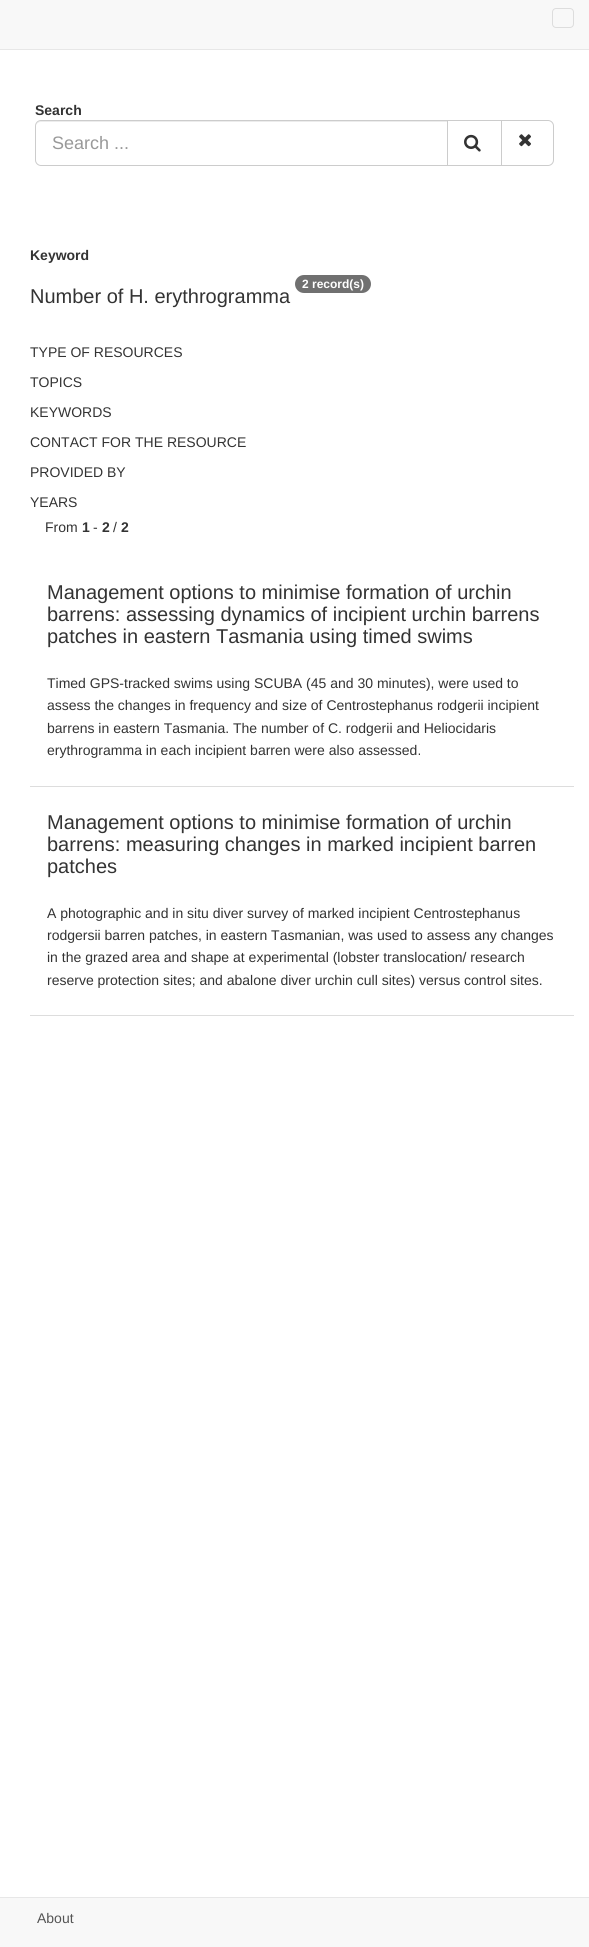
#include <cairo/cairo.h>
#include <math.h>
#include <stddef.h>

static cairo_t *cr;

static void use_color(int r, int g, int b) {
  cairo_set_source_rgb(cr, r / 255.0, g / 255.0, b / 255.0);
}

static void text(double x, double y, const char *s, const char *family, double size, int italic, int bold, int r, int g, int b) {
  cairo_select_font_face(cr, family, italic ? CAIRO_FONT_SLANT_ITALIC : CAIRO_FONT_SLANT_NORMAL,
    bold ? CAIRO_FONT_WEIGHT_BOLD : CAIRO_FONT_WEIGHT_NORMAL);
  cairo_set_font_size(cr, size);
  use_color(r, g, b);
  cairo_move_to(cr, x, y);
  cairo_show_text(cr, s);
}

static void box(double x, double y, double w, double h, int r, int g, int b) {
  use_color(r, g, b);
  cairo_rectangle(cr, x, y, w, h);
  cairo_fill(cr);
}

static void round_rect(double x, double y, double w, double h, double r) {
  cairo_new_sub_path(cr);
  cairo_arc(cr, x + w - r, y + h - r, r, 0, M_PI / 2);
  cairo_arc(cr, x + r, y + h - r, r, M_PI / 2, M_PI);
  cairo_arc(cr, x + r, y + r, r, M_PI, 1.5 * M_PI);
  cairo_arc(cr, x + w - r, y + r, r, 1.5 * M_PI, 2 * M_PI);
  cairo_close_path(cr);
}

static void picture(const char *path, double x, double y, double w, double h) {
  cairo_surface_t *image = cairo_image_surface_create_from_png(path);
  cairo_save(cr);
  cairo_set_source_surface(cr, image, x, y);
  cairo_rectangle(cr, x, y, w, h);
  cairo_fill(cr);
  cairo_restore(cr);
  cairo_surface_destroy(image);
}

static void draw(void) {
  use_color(255, 255, 255);
  cairo_paint(cr);
  box(0, 0, 589, 49, 248, 248, 248);
  box(0, 49, 589, 1, 231, 231, 231);
  round_rect(552.5, 8.5, 21, 19, 3.5);
  use_color(221, 221, 221);
  cairo_set_line_width(cr, 1);
  cairo_stroke(cr);
  use_color(236, 236, 236);
  cairo_new_path(cr);
  cairo_move_to(cr, 41, 122);
  cairo_line_to(cr, 447, 122);
  cairo_line_to(cr, 447, 121);
  cairo_line_to(cr, 41, 121);
  cairo_curve_to(cr, 38, 121, 36, 124, 36, 127);
  cairo_curve_to(cr, 36, 124, 38, 122, 41, 122);
  cairo_close_path(cr);
  cairo_fill(cr);
  cairo_new_path(cr);
  cairo_move_to(cr, 41, 120.5);
  cairo_line_to(cr, 447.5, 120.5);
  cairo_line_to(cr, 447.5, 165.5);
  cairo_line_to(cr, 41, 165.5);
  cairo_curve_to(cr, 38, 165.5, 35.5, 163, 35.5, 160);
  cairo_line_to(cr, 35.5, 126);
  cairo_curve_to(cr, 35.5, 123, 38, 120.5, 41, 120.5);
  cairo_close_path(cr);
  use_color(204, 204, 204);
  cairo_stroke(cr);
  cairo_rectangle(cr, 447.5, 120.5, 54, 45);
  cairo_stroke(cr);
  picture("img_01.png", 464, 134, 17, 18);
  use_color(255, 255, 255);
  cairo_new_path(cr);
  cairo_move_to(cr, 501.5, 120.5);
  cairo_line_to(cr, 548, 120.5);
  cairo_curve_to(cr, 551, 120.5, 553.5, 123, 553.5, 126);
  cairo_line_to(cr, 553.5, 160);
  cairo_curve_to(cr, 553.5, 163, 551, 165.5, 548, 165.5);
  cairo_line_to(cr, 501.5, 165.5);
  cairo_close_path(cr);
  cairo_fill_preserve(cr);
  use_color(204, 204, 204);
  cairo_stroke(cr);
  picture("img_02.png", 519, 134, 12, 13);
  use_color(112, 112, 112);
  round_rect(295, 275, 76, 18, 9);
  cairo_fill(cr);
  box(30, 786, 544, 1, 221, 221, 221);
  box(30, 1015, 544, 1, 221, 221, 221);
  box(0, 1898, 589, 49, 248, 248, 248);
  box(0, 1897, 589, 1, 231, 231, 231);
  text(35, 115, "Search", "Liberation Sans", 14, 0, 1, 51, 51, 51);
  text(52, 149, "Search ...", "Liberation Sans", 18, 0, 0, 153, 153, 153);
  text(30, 260, "Keyword", "Liberation Sans", 14, 0, 1, 51, 51, 51);
  text(302, 288, "2 record(s)", "Liberation Sans", 12, 0, 1, 255, 255, 255);
  text(30, 303, "Number of H. erythrogramma", "Liberation Sans", 20, 0, 0, 51, 51, 51);
  text(30, 357, "TYPE OF RESOURCES", "Liberation Sans", 14, 0, 0, 51, 51, 51);
  text(30, 387, "TOPICS", "Liberation Sans", 14, 0, 0, 51, 51, 51);
  text(30, 417, "KEYWORDS", "Liberation Sans", 14, 0, 0, 51, 51, 51);
  text(30, 447, "CONTACT FOR THE RESOURCE", "Liberation Sans", 14, 0, 0, 51, 51, 51);
  text(30, 477, "PROVIDED BY", "Liberation Sans", 14, 0, 0, 51, 51, 51);
  text(30, 507, "YEARS", "Liberation Sans", 14, 0, 0, 51, 51, 51);
  text(45, 532, "From", "Liberation Sans", 14, 0, 0, 51, 51, 51);
  text(82, 532, "1", "Liberation Sans", 14, 0, 1, 51, 51, 51);
  text(93, 532, "-", "Liberation Sans", 14, 0, 0, 51, 51, 51);
  text(102, 532, "2", "Liberation Sans", 14, 0, 1, 51, 51, 51);
  text(113, 532, "/", "Liberation Sans", 14, 0, 0, 51, 51, 51);
  text(121, 532, "2", "Liberation Sans", 14, 0, 1, 51, 51, 51);
  text(47, 599, "Management options to minimise formation of urchin", "Liberation Sans", 20, 0, 0, 51, 51, 51);
  text(47, 621, "barrens: assessing dynamics of incipient urchin barrens", "Liberation Sans", 20, 0, 0, 51, 51, 51);
  text(47, 643, "patches in eastern Tasmania using timed swims", "Liberation Sans", 20, 0, 0, 51, 51, 51);
  text(47, 688, "Timed GPS-tracked swims using SCUBA (45 and 30 minutes), were used to", "Liberation Sans", 14, 0, 0, 51, 51, 51);
  text(47, 710, "assess the changes in frequency and size of Centrostephanus rodgerii incipient", "Liberation Sans", 14, 0, 0, 51, 51, 51);
  text(47, 733, "barrens in eastern Tasmania. The number of C. rodgerii and Heliocidaris", "Liberation Sans", 14, 0, 0, 51, 51, 51);
  text(47, 755, "erythrogramma in each incipient barren were also assessed.", "Liberation Sans", 14, 0, 0, 51, 51, 51);
  text(47, 829, "Management options to minimise formation of urchin", "Liberation Sans", 20, 0, 0, 51, 51, 51);
  text(47, 851, "barrens: measuring changes in marked incipient barren", "Liberation Sans", 20, 0, 0, 51, 51, 51);
  text(47, 873, "patches", "Liberation Sans", 20, 0, 0, 51, 51, 51);
  text(47, 918, "A photographic and in situ diver survey of marked incipient Centrostephanus", "Liberation Sans", 14, 0, 0, 51, 51, 51);
  text(47, 940, "rodgersii barren patches, in eastern Tasmanian, was used to assess any changes", "Liberation Sans", 14, 0, 0, 51, 51, 51);
  text(47, 962, "in the grazed area and shape at experimental (lobster translocation/ research", "Liberation Sans", 14, 0, 0, 51, 51, 51);
  text(47, 985, "reserve protection sites; and abalone diver urchin cull sites) versus control sites.", "Liberation Sans", 14, 0, 0, 51, 51, 51);
  text(37, 1923, "About", "Liberation Sans", 14, 0, 0, 85, 85, 85);
}

int main(void) {
  cairo_surface_t *surface = cairo_image_surface_create(CAIRO_FORMAT_RGB24, 589, 1947);
  cr = cairo_create(surface);
  cairo_font_options_t *options = cairo_font_options_create();
  cairo_font_options_set_hint_metrics(options, CAIRO_HINT_METRICS_OFF);
  cairo_font_options_set_hint_style(options, CAIRO_HINT_STYLE_NONE);
  cairo_set_font_options(cr, options);
  cairo_set_miter_limit(cr, 4);
  draw();
  cairo_surface_write_to_png(surface, "out.png");
  cairo_font_options_destroy(options);
  cairo_destroy(cr);
  cairo_surface_destroy(surface);
  return 0;
}
